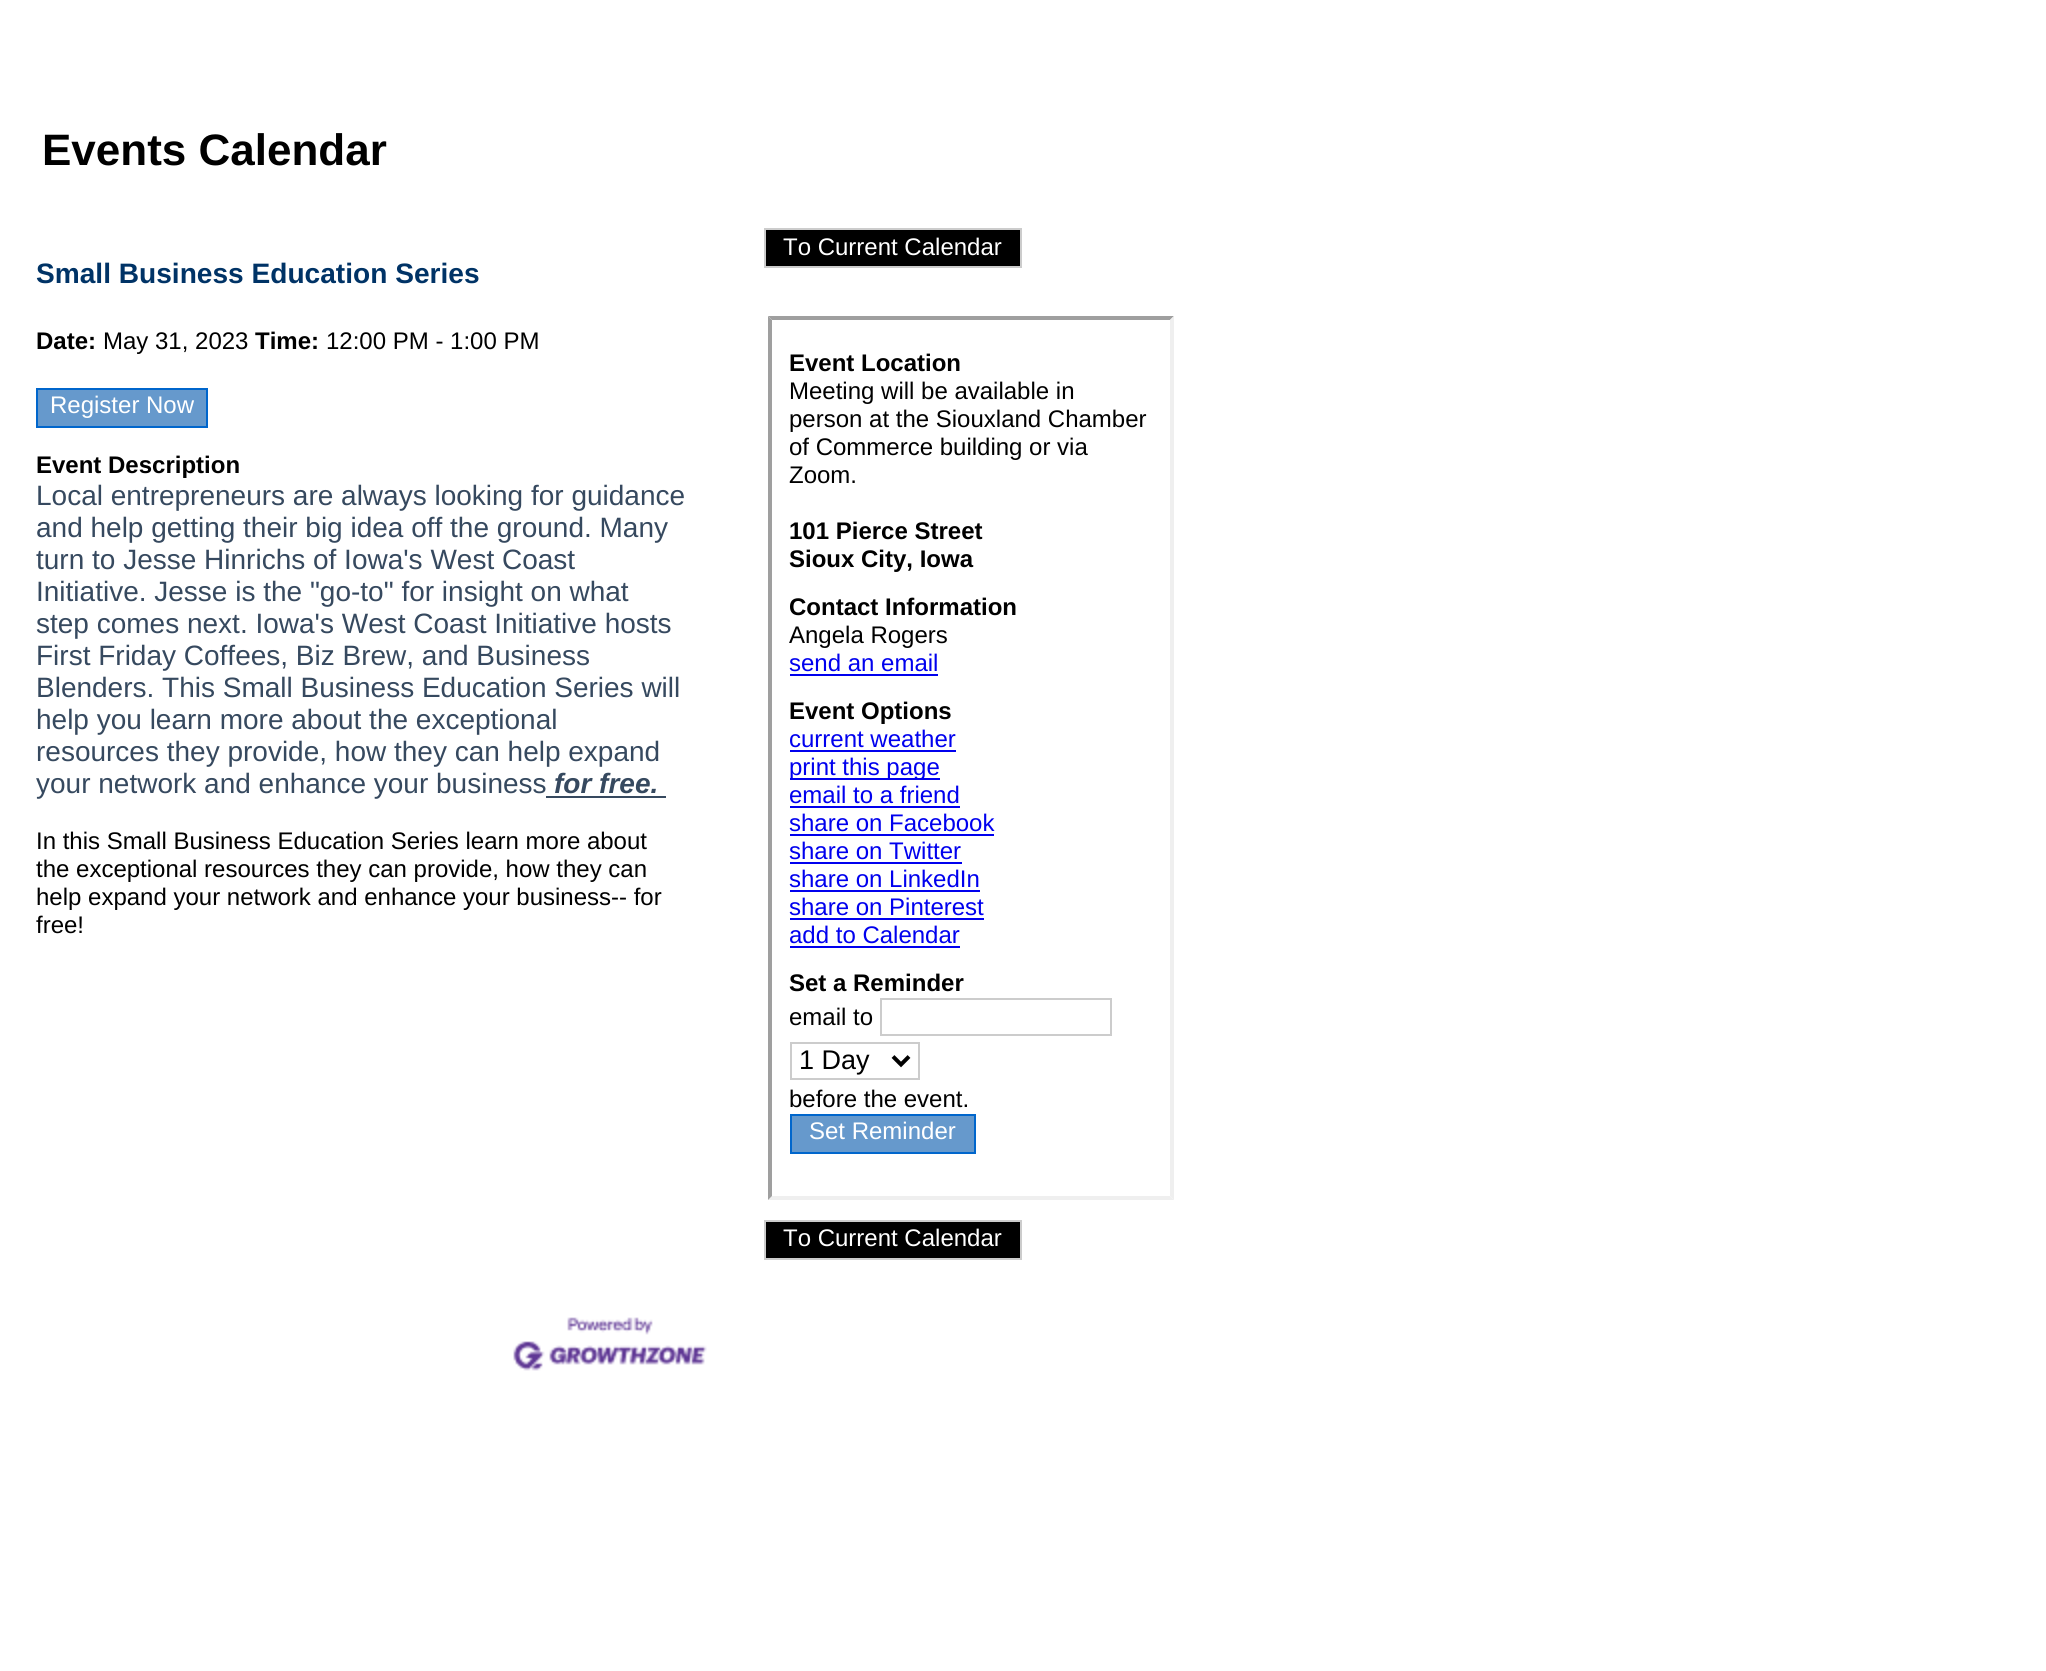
#include <cairo/cairo.h>
#include <math.h>
#include <stddef.h>

static cairo_t *cr;

static void use_color(int r, int g, int b) {
  cairo_set_source_rgb(cr, r / 255.0, g / 255.0, b / 255.0);
}

static void text(double x, double y, const char *s, const char *family, double size, int italic, int bold, int r, int g, int b) {
  cairo_select_font_face(cr, family, italic ? CAIRO_FONT_SLANT_ITALIC : CAIRO_FONT_SLANT_NORMAL,
    bold ? CAIRO_FONT_WEIGHT_BOLD : CAIRO_FONT_WEIGHT_NORMAL);
  cairo_set_font_size(cr, size);
  use_color(r, g, b);
  cairo_move_to(cr, x, y);
  cairo_show_text(cr, s);
}

static void box(double x, double y, double w, double h, int r, int g, int b) {
  use_color(r, g, b);
  cairo_rectangle(cr, x, y, w, h);
  cairo_fill(cr);
}

static void picture(const char *path, double x, double y, double w, double h) {
  cairo_surface_t *image = cairo_image_surface_create_from_png(path);
  cairo_save(cr);
  cairo_set_source_surface(cr, image, x, y);
  cairo_rectangle(cr, x, y, w, h);
  cairo_fill(cr);
  cairo_restore(cr);
  cairo_surface_destroy(image);
}

static void draw(void) {
  use_color(255, 255, 255);
  cairo_paint(cr);
  use_color(102, 153, 204);
  cairo_rectangle(cr, 37, 389, 170, 38);
  cairo_fill_preserve(cr);
  use_color(0, 102, 204);
  cairo_stroke(cr);
  box(546, 796, 120, 2, 54, 73, 95);
  use_color(0, 0, 0);
  cairo_rectangle(cr, 765, 229, 256, 38);
  cairo_fill_preserve(cr);
  use_color(204, 204, 204);
  cairo_stroke(cr);
  use_color(159, 159, 159);
  cairo_new_path(cr);
  cairo_move_to(cr, 768, 316);
  cairo_line_to(cr, 1174, 316);
  cairo_line_to(cr, 1170, 320);
  cairo_line_to(cr, 772, 320);
  cairo_close_path(cr);
  cairo_fill(cr);
  use_color(239, 239, 239);
  cairo_new_path(cr);
  cairo_move_to(cr, 1174, 316);
  cairo_line_to(cr, 1174, 1200);
  cairo_line_to(cr, 1170, 1196);
  cairo_line_to(cr, 1170, 320);
  cairo_close_path(cr);
  cairo_fill(cr);
  cairo_new_path(cr);
  cairo_move_to(cr, 1174, 1200);
  cairo_line_to(cr, 768, 1200);
  cairo_line_to(cr, 772, 1196);
  cairo_line_to(cr, 1170, 1196);
  cairo_close_path(cr);
  cairo_fill(cr);
  use_color(159, 159, 159);
  cairo_new_path(cr);
  cairo_move_to(cr, 768, 1200);
  cairo_line_to(cr, 768, 316);
  cairo_line_to(cr, 772, 320);
  cairo_line_to(cr, 772, 1196);
  cairo_close_path(cr);
  cairo_fill(cr);
  box(790, 674, 148, 2, 0, 0, 238);
  box(790, 750, 166, 2, 0, 0, 238);
  box(790, 778, 150, 2, 0, 0, 238);
  box(790, 806, 170, 2, 0, 0, 238);
  box(790, 834, 204, 2, 0, 0, 238);
  box(790, 862, 172, 2, 0, 0, 238);
  box(790, 890, 190, 2, 0, 0, 238);
  box(790, 918, 194, 2, 0, 0, 238);
  box(790, 946, 170, 2, 0, 0, 238);
  cairo_rectangle(cr, 881, 999, 230, 36);
  use_color(204, 204, 204);
  cairo_stroke(cr);
  cairo_rectangle(cr, 791, 1043, 128, 36);
  cairo_stroke(cr);
  cairo_new_path(cr);
  cairo_move_to(cr, 893, 1056.5);
  cairo_line_to(cr, 901, 1064.5);
  cairo_line_to(cr, 909, 1056.5);
  use_color(0, 0, 0);
  cairo_set_line_width(cr, 4);
  cairo_stroke(cr);
  use_color(102, 153, 204);
  cairo_rectangle(cr, 791, 1115, 184, 38);
  cairo_fill_preserve(cr);
  use_color(0, 102, 204);
  cairo_set_line_width(cr, 2);
  cairo_stroke(cr);
  use_color(0, 0, 0);
  cairo_rectangle(cr, 765, 1221, 256, 38);
  cairo_fill_preserve(cr);
  use_color(204, 204, 204);
  cairo_stroke(cr);
  picture("img_01.png", 513, 1317, 194, 54);
  text(42, 165, "Events Calendar", "Liberation Sans", 44, 0, 1, 0, 0, 0);
  text(36, 283, "Small Business Education Series", "Liberation Sans", 28.1, 0, 1, 0, 51, 102);
  text(36, 349, "Date:", "Liberation Sans", 24, 0, 1, 0, 0, 0);
  text(103, 349, "May 31, 2023", "Liberation Sans", 24, 0, 0, 0, 0, 0);
  text(255, 349, "Time:", "Liberation Sans", 24, 0, 1, 0, 0, 0);
  text(326, 349, "12:00 PM - 1:00 PM", "Liberation Sans", 24, 0, 0, 0, 0, 0);
  text(50, 413, "Register Now", "Liberation Sans", 24, 0, 0, 255, 255, 255);
  text(36, 473, "Event Description", "Liberation Sans", 24, 0, 1, 0, 0, 0);
  text(36, 505, "Local entrepreneurs are always looking for guidance", "Liberation Sans", 28, 0, 0, 54, 73, 95);
  text(36, 537, "and help getting their big idea off the ground. Many", "Liberation Sans", 28, 0, 0, 54, 73, 95);
  text(36, 569, "turn to Jesse Hinrichs of Iowa's West Coast", "Liberation Sans", 28, 0, 0, 54, 73, 95);
  text(36, 601, "Initiative. Jesse is the \"go-to\" for insight on what", "Liberation Sans", 28, 0, 0, 54, 73, 95);
  text(36, 633, "step comes next. Iowa's West Coast Initiative hosts", "Liberation Sans", 28, 0, 0, 54, 73, 95);
  text(36, 665, "First Friday Coffees, Biz Brew, and Business", "Liberation Sans", 28, 0, 0, 54, 73, 95);
  text(36, 697, "Blenders. This Small Business Education Series will", "Liberation Sans", 28, 0, 0, 54, 73, 95);
  text(36, 729, "help you learn more about the exceptional", "Liberation Sans", 28, 0, 0, 54, 73, 95);
  text(36, 761, "resources they provide, how they can help expand", "Liberation Sans", 28, 0, 0, 54, 73, 95);
  text(36, 793, "your network and enhance your business", "Liberation Sans", 28, 0, 0, 54, 73, 95);
  text(554, 793, "for free.", "Liberation Sans", 28, 1, 1, 54, 73, 95);
  text(36, 849, "In this Small Business Education Series learn more about", "Liberation Sans", 24, 0, 0, 0, 0, 0);
  text(36, 877, "the exceptional resources they can provide, how they can", "Liberation Sans", 24, 0, 0, 0, 0, 0);
  text(36, 905, "help expand your network and enhance your business-- for", "Liberation Sans", 24, 0, 0, 0, 0, 0);
  text(36, 933, "free!", "Liberation Sans", 24, 0, 0, 0, 0, 0);
  text(783, 255, "To Current Calendar", "Liberation Sans", 24, 0, 0, 255, 255, 255);
  text(789, 371, "Event Location", "Liberation Sans", 24, 0, 1, 0, 0, 0);
  text(789, 399, "Meeting will be available in", "Liberation Sans", 24, 0, 0, 0, 0, 0);
  text(789, 427, "person at the Siouxland Chamber", "Liberation Sans", 24, 0, 0, 0, 0, 0);
  text(789, 455, "of Commerce building or via", "Liberation Sans", 24, 0, 0, 0, 0, 0);
  text(789, 483, "Zoom.", "Liberation Sans", 24, 0, 0, 0, 0, 0);
  text(789, 539, "101 Pierce Street", "Liberation Sans", 24, 0, 1, 0, 0, 0);
  text(789, 567, "Sioux City, Iowa", "Liberation Sans", 24, 0, 1, 0, 0, 0);
  text(789, 615, "Contact Information", "Liberation Sans", 24, 0, 1, 0, 0, 0);
  text(789, 643, "Angela Rogers", "Liberation Sans", 24, 0, 0, 0, 0, 0);
  text(789, 671, "send an email", "Liberation Sans", 24, 0, 0, 0, 0, 238);
  text(789, 719, "Event Options", "Liberation Sans", 24, 0, 1, 0, 0, 0);
  text(789, 747, "current weather", "Liberation Sans", 24, 0, 0, 0, 0, 238);
  text(789, 775, "print this page", "Liberation Sans", 24, 0, 0, 0, 0, 238);
  text(789, 803, "email to a friend", "Liberation Sans", 24, 0, 0, 0, 0, 238);
  text(789, 831, "share on Facebook", "Liberation Sans", 24, 0, 0, 0, 0, 238);
  text(789, 859, "share on Twitter", "Liberation Sans", 24, 0, 0, 0, 0, 238);
  text(789, 887, "share on LinkedIn", "Liberation Sans", 24, 0, 0, 0, 0, 238);
  text(789, 915, "share on Pinterest", "Liberation Sans", 24, 0, 0, 0, 0, 238);
  text(789, 943, "add to Calendar", "Liberation Sans", 24, 0, 0, 0, 0, 238);
  text(789, 991, "Set a Reminder", "Liberation Sans", 24, 0, 1, 0, 0, 0);
  text(789, 1025, "email to", "Liberation Sans", 24, 0, 0, 0, 0, 0);
  text(799, 1069, "1 Day", "Liberation Sans", 27, 0, 0, 0, 0, 0);
  text(789, 1107, "before the event.", "Liberation Sans", 24, 0, 0, 0, 0, 0);
  text(809, 1139, "Set Reminder", "Liberation Sans", 24, 0, 0, 255, 255, 255);
  text(783, 1246, "To Current Calendar", "Liberation Sans", 24, 0, 0, 255, 255, 255);
}

int main(void) {
  cairo_surface_t *surface = cairo_image_surface_create(CAIRO_FORMAT_RGB24, 2046, 1671);
  cr = cairo_create(surface);
  cairo_font_options_t *options = cairo_font_options_create();
  cairo_font_options_set_hint_metrics(options, CAIRO_HINT_METRICS_OFF);
  cairo_font_options_set_hint_style(options, CAIRO_HINT_STYLE_NONE);
  cairo_set_font_options(cr, options);
  cairo_set_miter_limit(cr, 4);
  draw();
  cairo_surface_write_to_png(surface, "out.png");
  cairo_font_options_destroy(options);
  cairo_destroy(cr);
  cairo_surface_destroy(surface);
  return 0;
}
